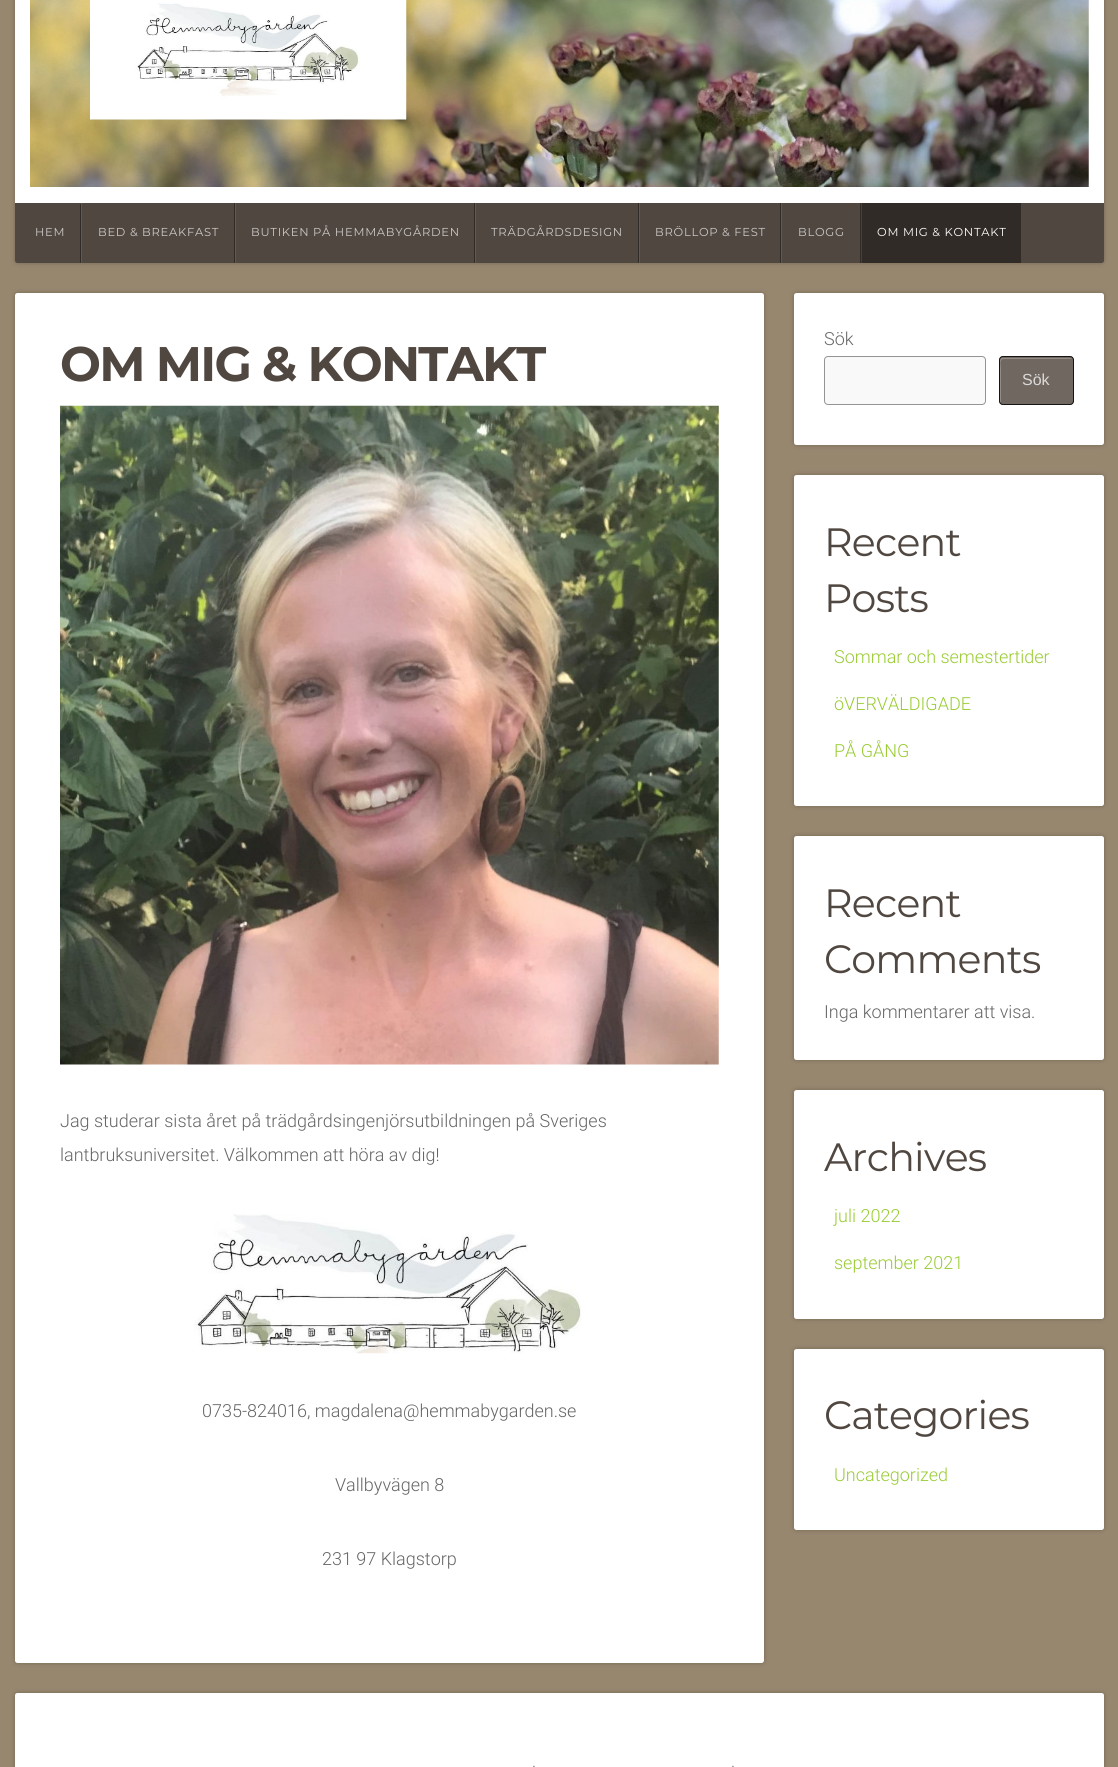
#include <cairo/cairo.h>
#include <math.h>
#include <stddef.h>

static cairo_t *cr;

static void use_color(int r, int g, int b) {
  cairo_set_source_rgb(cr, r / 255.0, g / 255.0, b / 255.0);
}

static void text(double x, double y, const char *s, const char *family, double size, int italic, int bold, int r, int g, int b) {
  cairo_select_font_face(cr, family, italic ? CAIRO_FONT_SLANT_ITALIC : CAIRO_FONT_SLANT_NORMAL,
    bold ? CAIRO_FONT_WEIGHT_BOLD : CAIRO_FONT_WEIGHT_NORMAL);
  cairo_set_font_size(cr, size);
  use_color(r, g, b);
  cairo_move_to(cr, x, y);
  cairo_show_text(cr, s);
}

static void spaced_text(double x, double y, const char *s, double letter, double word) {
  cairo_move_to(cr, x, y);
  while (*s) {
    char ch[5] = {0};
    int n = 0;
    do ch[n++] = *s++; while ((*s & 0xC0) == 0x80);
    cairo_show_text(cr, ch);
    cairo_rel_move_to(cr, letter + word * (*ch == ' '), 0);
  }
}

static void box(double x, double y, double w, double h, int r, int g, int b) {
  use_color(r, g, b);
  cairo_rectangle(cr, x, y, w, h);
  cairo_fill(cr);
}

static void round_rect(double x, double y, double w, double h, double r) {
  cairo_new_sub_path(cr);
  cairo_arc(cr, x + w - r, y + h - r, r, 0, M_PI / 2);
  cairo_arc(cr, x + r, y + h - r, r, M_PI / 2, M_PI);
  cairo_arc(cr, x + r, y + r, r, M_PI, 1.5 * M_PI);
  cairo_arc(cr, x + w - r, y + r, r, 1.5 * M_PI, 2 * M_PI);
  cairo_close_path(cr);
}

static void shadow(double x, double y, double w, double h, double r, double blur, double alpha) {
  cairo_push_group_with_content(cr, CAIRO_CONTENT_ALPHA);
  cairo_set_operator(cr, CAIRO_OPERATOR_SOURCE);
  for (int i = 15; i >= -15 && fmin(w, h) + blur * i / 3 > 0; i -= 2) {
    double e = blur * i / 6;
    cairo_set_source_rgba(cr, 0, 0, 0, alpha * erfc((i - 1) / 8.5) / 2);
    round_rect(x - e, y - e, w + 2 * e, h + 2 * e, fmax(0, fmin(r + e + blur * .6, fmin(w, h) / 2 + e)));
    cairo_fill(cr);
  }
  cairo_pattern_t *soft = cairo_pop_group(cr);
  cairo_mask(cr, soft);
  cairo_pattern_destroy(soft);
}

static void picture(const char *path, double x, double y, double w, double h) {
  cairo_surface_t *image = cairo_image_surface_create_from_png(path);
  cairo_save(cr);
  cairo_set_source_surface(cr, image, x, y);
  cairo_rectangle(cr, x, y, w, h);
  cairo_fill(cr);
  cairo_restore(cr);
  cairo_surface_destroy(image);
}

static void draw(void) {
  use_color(152, 135, 111);
  cairo_paint(cr);
  use_color(0, 0, 0);
  shadow(15, -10, 1089, 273, 2.5, 2.5, 0.24);
  box(15, 0, 1089, 203, 255, 255, 255);
  picture("img_01.png", 30, 0, 1059, 187);
  picture("img_02.png", 90, 0, 317, 120);
  use_color(80, 71, 65);
  cairo_new_path(cr);
  cairo_move_to(cr, 15, 203);
  cairo_line_to(cr, 1104, 203);
  cairo_line_to(cr, 1104, 260.5);
  cairo_curve_to(cr, 1104, 262, 1103, 263, 1101.5, 263);
  cairo_line_to(cr, 17.5, 263);
  cairo_curve_to(cr, 16, 263, 15, 262, 15, 260.5);
  cairo_close_path(cr);
  cairo_fill(cr);
  box(80, 204, 1, 59, 48, 43, 39);
  box(234, 203, 1, 60, 48, 43, 39);
  box(81, 203, 1, 60, 98, 89, 84);
  box(474, 203, 1, 60, 48, 43, 39);
  box(235, 203, 1, 60, 98, 89, 84);
  box(638, 203, 1, 60, 48, 43, 39);
  box(475, 203, 1, 60, 98, 89, 84);
  box(780, 203, 1, 60, 48, 43, 39);
  box(639, 203, 1, 60, 98, 89, 84);
  box(860, 203, 1, 60, 48, 43, 39);
  box(781, 203, 1, 60, 98, 89, 84);
  box(862, 203, 159, 60, 48, 43, 39);
  box(861, 203, 1, 60, 69, 64, 61);
  use_color(0, 0, 0);
  shadow(15, 293, 749, 1370, 2.5, 2.5, 0.24);
  use_color(255, 255, 255);
  round_rect(15, 293, 749, 1370, 2.5);
  cairo_fill(cr);
  picture("img_03.png", 60, 405, 659, 660);
  picture("img_04.png", 194, 1214, 388, 140);
  use_color(0, 0, 0);
  shadow(794, 293, 310, 152, 2.5, 2.5, 0.24);
  use_color(255, 255, 255);
  round_rect(794, 293, 310, 152, 2.5);
  cairo_fill(cr);
  use_color(249, 249, 249);
  round_rect(824.5, 356.5, 161, 48, 3.5);
  cairo_fill_preserve(cr);
  use_color(148, 148, 148);
  cairo_set_line_width(cr, 1);
  cairo_stroke(cr);
  use_color(112, 103, 96);
  round_rect(999, 356, 75, 49, 4);
  cairo_fill(cr);
  use_color(146, 139, 134);
  cairo_new_path(cr);
  cairo_move_to(cr, 1004, 359);
  cairo_line_to(cr, 1073, 359);
  cairo_curve_to(cr, 1072, 359, 1071, 358, 1070, 358);
  cairo_line_to(cr, 1002, 358);
  cairo_curve_to(cr, 1001, 358, 1000, 359, 1000, 360);
  cairo_line_to(cr, 1000, 402);
  cairo_curve_to(cr, 1000, 402, 1001, 403, 1001, 404);
  cairo_line_to(cr, 1001, 368);
  cairo_curve_to(cr, 1001, 365, 999, 359, 1004, 359);
  cairo_close_path(cr);
  cairo_fill(cr);
  round_rect(999.5, 356.5, 74, 48, 3.5);
  cairo_set_source_rgba(cr, 0, 0, 0, 0.8);
  cairo_stroke(cr);
  use_color(0, 0, 0);
  shadow(794, 475, 310, 331, 2.5, 2.5, 0.24);
  use_color(255, 255, 255);
  round_rect(794, 475, 310, 331, 2.5);
  cairo_fill(cr);
  use_color(0, 0, 0);
  shadow(794, 836, 310, 224, 2.5, 2.5, 0.24);
  use_color(255, 255, 255);
  round_rect(794, 836, 310, 224, 2.5);
  cairo_fill(cr);
  use_color(0, 0, 0);
  shadow(794, 1090, 310, 229, 2.5, 2.5, 0.24);
  use_color(255, 255, 255);
  round_rect(794, 1090, 310, 229, 2.5);
  cairo_fill(cr);
  use_color(0, 0, 0);
  shadow(794, 1349, 310, 181, 2.5, 2.5, 0.24);
  use_color(255, 255, 255);
  round_rect(794, 1349, 310, 181, 2.5);
  cairo_fill(cr);
  use_color(0, 0, 0);
  shadow(15, 1693, 1089, 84, 2.5, 2.5, 0.24);
  use_color(255, 255, 255);
  cairo_new_path(cr);
  cairo_move_to(cr, 17.5, 1693);
  cairo_line_to(cr, 1101.5, 1693);
  cairo_curve_to(cr, 1103, 1693, 1104, 1694, 1104, 1695.5);
  cairo_line_to(cr, 1104, 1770);
  cairo_line_to(cr, 15, 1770);
  cairo_line_to(cr, 15, 1695.5);
  cairo_curve_to(cr, 15, 1694, 16, 1693, 17.5, 1693);
  cairo_close_path(cr);
  cairo_fill(cr);
  cairo_select_font_face(cr, "Montserrat", CAIRO_FONT_SLANT_NORMAL, CAIRO_FONT_WEIGHT_NORMAL);
  cairo_set_font_size(cr, 11.5);
  use_color(203, 200, 198);
  spaced_text(35, 236, "HEM", 0.75, 0);
  spaced_text(98, 236, "BED & BREAKFAST", 0.75, 0);
  spaced_text(251, 236, "BUTIKEN PÅ HEMMABYGÅRDEN", 0.75, 0);
  spaced_text(491, 236, "TRÄDGÅRDSDESIGN", 0.75, 0);
  spaced_text(655, 236, "BRÖLLOP & FEST", 0.75, 0);
  spaced_text(798, 236, "BLOGG", 0.75, 0);
  use_color(255, 255, 255);
  spaced_text(877, 236, "OM MIG & KONTAKT", 0.75, 0);
  cairo_select_font_face(cr, "Montserrat", CAIRO_FONT_SLANT_NORMAL, CAIRO_FONT_WEIGHT_BOLD);
  cairo_set_font_size(cr, 48.5);
  use_color(80, 71, 65);
  spaced_text(60, 381, "OM MIG & KONTAKT", -1.75, 0);
  text(60, 1127, "Jag studerar sista året på trädgårdsingenjörsutbildningen på Sveriges", "Roboto Light", 18, 0, 0, 102, 102, 102);
  text(60, 1161, "lantbruksuniversitet. Välkommen att höra av dig!", "Roboto Light", 18, 0, 0, 102, 102, 102);
  text(202, 1417, "0735-824016, magdalena@hemmabygarden.se", "Roboto Light", 18, 0, 0, 102, 102, 102);
  text(335, 1491, "Vallbyvägen 8", "Roboto Light", 18, 0, 0, 102, 102, 102);
  text(322, 1565, "231 97 Klagstorp", "Roboto Light", 18, 0, 0, 102, 102, 102);
  text(824, 345, "Sök", "Roboto Light", 18, 0, 0, 102, 102, 102);
  text(1022, 385, "Sök", "Liberation Sans", 16, 0, 0, 219, 217, 215);
  cairo_select_font_face(cr, "Montserrat", CAIRO_FONT_SLANT_NORMAL, CAIRO_FONT_WEIGHT_NORMAL);
  cairo_set_font_size(cr, 39.5);
  use_color(80, 71, 65);
  spaced_text(824, 556, "Recent", -0.75, 0);
  spaced_text(824, 612, "Posts", -0.75, 0);
  text(834, 663, "Sommar och semestertider", "Roboto Light", 18, 0, 0, 153, 204, 51);
  text(834, 710, "öVERVÄLDIGADE", "Roboto Light", 18, 0, 0, 153, 204, 51);
  text(834, 757, "PÅ GÅNG", "Roboto Light", 18, 0, 0, 153, 204, 51);
  cairo_select_font_face(cr, "Montserrat", CAIRO_FONT_SLANT_NORMAL, CAIRO_FONT_WEIGHT_NORMAL);
  cairo_set_font_size(cr, 39.5);
  use_color(80, 71, 65);
  spaced_text(824, 917, "Recent", -0.75, 0);
  spaced_text(824, 973, "Comments", -0.75, 0);
  text(824, 1018, "Inga kommentarer att visa.", "Roboto Light", 18, 0, 0, 102, 102, 102);
  cairo_select_font_face(cr, "Montserrat", CAIRO_FONT_SLANT_NORMAL, CAIRO_FONT_WEIGHT_NORMAL);
  cairo_set_font_size(cr, 39.5);
  use_color(80, 71, 65);
  spaced_text(824, 1171, "Archives", -0.75, 0);
  text(834, 1222, "juli 2022", "Roboto Light", 18, 0, 0, 153, 204, 51);
  text(834, 1269, "september 2021", "Roboto Light", 18, 0, 0, 153, 204, 51);
  cairo_select_font_face(cr, "Montserrat", CAIRO_FONT_SLANT_NORMAL, CAIRO_FONT_WEIGHT_NORMAL);
  cairo_set_font_size(cr, 39.5);
  use_color(80, 71, 65);
  spaced_text(824, 1429, "Categories", -0.75, 0);
  text(834, 1481, "Uncategorized", "Roboto Light", 18, 0, 0, 153, 204, 51);
  text(532, 1772, "·", "Roboto Light", 16, 0, 0, 102, 102, 102);
  text(731, 1772, "·", "Roboto Light", 16, 0, 0, 102, 102, 102);
}

int main(void) {
  cairo_surface_t *surface = cairo_image_surface_create(CAIRO_FORMAT_RGB24, 1118, 1767);
  cr = cairo_create(surface);
  cairo_font_options_t *options = cairo_font_options_create();
  cairo_font_options_set_hint_metrics(options, CAIRO_HINT_METRICS_OFF);
  cairo_font_options_set_hint_style(options, CAIRO_HINT_STYLE_NONE);
  cairo_set_font_options(cr, options);
  cairo_set_miter_limit(cr, 4);
  draw();
  cairo_surface_write_to_png(surface, "out.png");
  cairo_font_options_destroy(options);
  cairo_destroy(cr);
  cairo_surface_destroy(surface);
  return 0;
}
